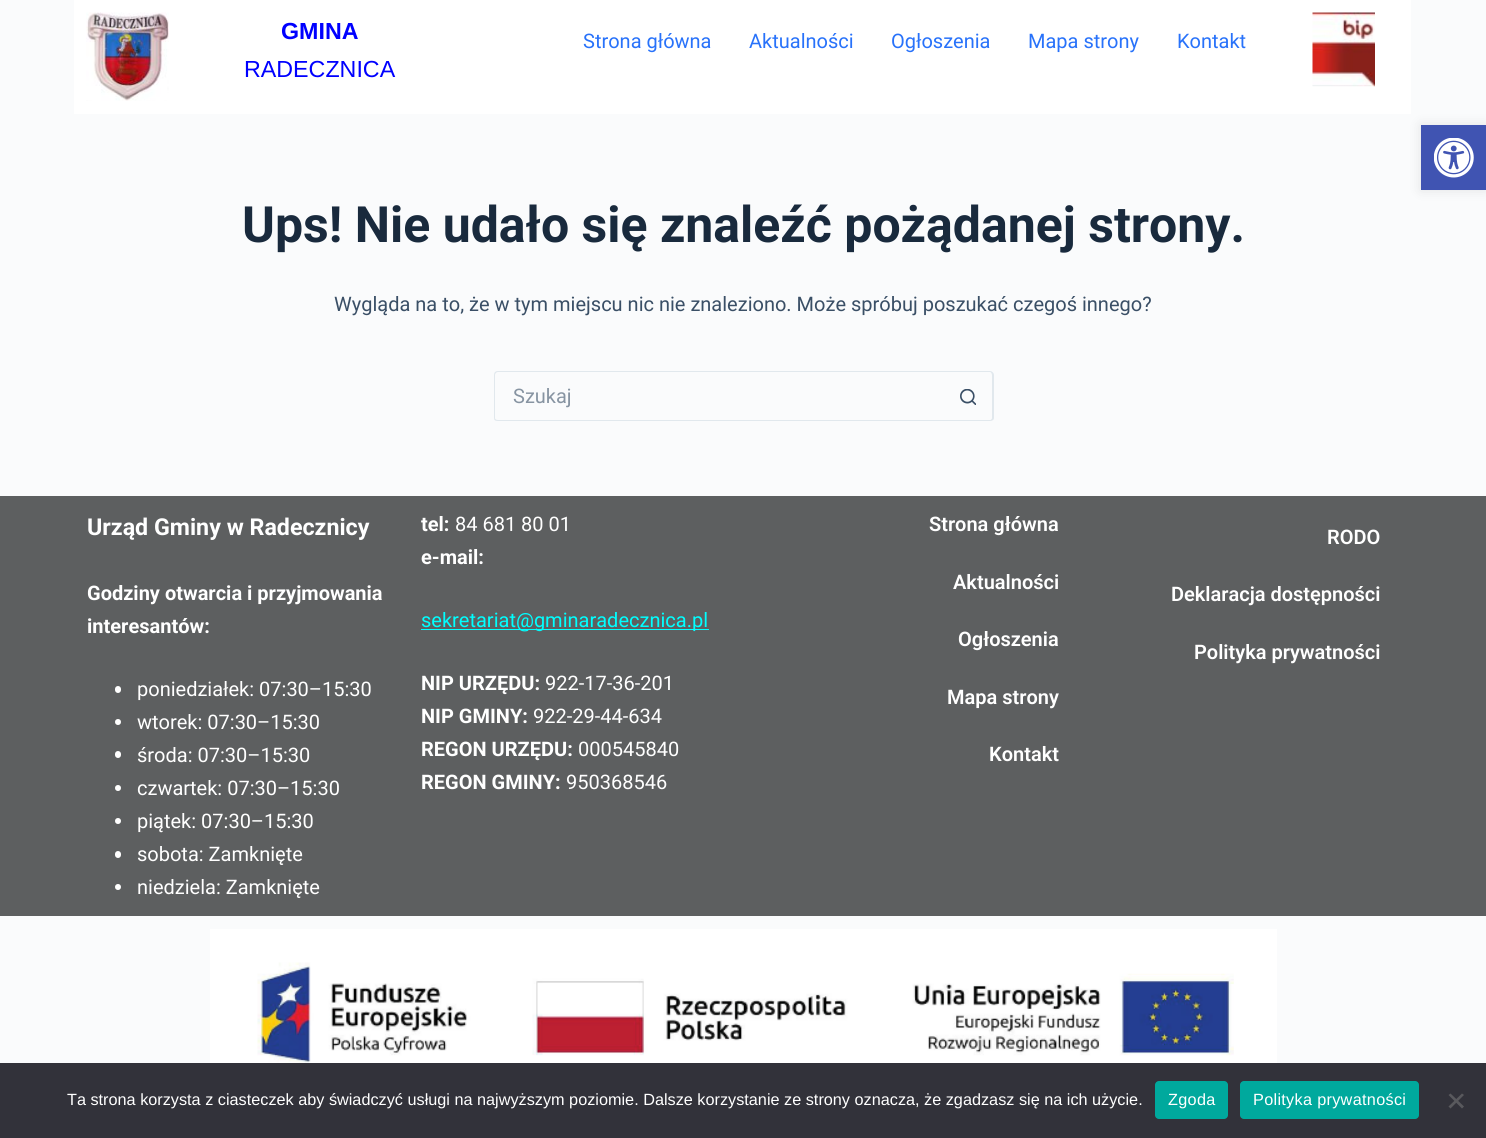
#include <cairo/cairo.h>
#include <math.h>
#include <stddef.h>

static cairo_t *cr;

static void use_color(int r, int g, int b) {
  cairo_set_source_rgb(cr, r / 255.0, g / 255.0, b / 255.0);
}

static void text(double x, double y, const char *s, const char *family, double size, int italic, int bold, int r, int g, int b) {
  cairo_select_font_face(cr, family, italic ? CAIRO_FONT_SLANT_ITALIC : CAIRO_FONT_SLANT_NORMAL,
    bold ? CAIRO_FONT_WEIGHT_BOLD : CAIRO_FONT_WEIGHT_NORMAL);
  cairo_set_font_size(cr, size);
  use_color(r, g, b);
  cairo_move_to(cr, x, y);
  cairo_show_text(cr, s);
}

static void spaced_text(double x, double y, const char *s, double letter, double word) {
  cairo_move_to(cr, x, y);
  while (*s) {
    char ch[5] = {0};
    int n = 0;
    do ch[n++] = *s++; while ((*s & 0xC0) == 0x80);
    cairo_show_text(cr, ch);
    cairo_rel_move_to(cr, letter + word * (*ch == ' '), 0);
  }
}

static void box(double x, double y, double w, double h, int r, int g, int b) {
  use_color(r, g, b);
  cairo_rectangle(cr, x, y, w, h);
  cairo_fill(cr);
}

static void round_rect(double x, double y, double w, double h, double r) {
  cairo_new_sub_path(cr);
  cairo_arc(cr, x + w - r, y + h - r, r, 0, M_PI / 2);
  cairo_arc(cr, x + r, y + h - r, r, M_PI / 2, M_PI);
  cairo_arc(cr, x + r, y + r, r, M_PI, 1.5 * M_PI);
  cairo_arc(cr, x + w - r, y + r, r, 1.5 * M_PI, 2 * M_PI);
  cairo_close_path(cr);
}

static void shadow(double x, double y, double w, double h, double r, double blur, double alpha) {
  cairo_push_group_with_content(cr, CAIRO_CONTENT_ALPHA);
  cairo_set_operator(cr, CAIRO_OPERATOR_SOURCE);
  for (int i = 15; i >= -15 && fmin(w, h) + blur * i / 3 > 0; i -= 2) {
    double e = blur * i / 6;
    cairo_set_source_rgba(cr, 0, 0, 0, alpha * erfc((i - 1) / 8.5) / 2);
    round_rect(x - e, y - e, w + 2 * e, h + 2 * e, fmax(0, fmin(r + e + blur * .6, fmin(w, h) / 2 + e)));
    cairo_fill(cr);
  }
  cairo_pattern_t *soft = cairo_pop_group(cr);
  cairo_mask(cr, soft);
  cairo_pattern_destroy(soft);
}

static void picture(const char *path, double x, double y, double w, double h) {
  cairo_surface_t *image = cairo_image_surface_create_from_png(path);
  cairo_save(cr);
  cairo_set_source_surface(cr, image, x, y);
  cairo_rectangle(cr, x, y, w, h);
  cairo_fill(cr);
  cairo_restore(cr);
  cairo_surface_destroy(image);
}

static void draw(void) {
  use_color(250, 251, 252);
  cairo_paint(cr);
  box(74, 0, 1337, 114, 255, 255, 255);
  picture("img_01.png", 86, 12, 83, 89);
  picture("img_02.png", 1312, 12, 63, 75);
  use_color(225, 232, 237);
  cairo_set_fill_rule(cr, CAIRO_FILL_RULE_EVEN_ODD);
  cairo_new_path(cr);
  cairo_move_to(cr, 498, 371);
  cairo_line_to(cr, 944, 371);
  cairo_line_to(cr, 944, 421);
  cairo_line_to(cr, 498, 421);
  cairo_curve_to(cr, 495, 421, 494, 420, 494, 418);
  cairo_line_to(cr, 494, 375);
  cairo_curve_to(cr, 494, 373, 495, 371, 498, 371);
  cairo_close_path(cr);
  cairo_move_to(cr, 498, 372);
  cairo_line_to(cr, 944, 372);
  cairo_line_to(cr, 944, 420);
  cairo_line_to(cr, 498, 420);
  cairo_curve_to(cr, 496, 420, 495, 419, 495, 418);
  cairo_line_to(cr, 495, 375);
  cairo_curve_to(cr, 495, 374, 496, 372, 498, 372);
  cairo_close_path(cr);
  cairo_fill(cr);
  cairo_new_path(cr);
  cairo_move_to(cr, 944, 371);
  cairo_line_to(cr, 990, 371);
  cairo_curve_to(cr, 992, 371, 994, 373, 994, 375);
  cairo_line_to(cr, 994, 418);
  cairo_curve_to(cr, 994, 420, 992, 421, 990, 421);
  cairo_line_to(cr, 944, 421);
  cairo_close_path(cr);
  cairo_move_to(cr, 944, 372);
  cairo_line_to(cr, 990, 372);
  cairo_curve_to(cr, 991, 372, 992, 374, 992, 375);
  cairo_line_to(cr, 992, 418);
  cairo_curve_to(cr, 992, 419, 991, 420, 990, 420);
  cairo_line_to(cr, 944, 420);
  cairo_close_path(cr);
  cairo_fill(cr);
  picture("img_03.png", 960, 389, 16, 16);
  box(0, 496, 1486, 420, 93, 95, 96);
  use_color(255, 255, 255);
  round_rect(115, 686, 6, 7, 3);
  cairo_fill(cr);
  cairo_arc(cr, 118, 722, 3, 0, 2 * M_PI);
  cairo_fill(cr);
  round_rect(115, 751, 6, 7, 3);
  cairo_fill(cr);
  cairo_arc(cr, 118, 788, 3, 0, 2 * M_PI);
  cairo_fill(cr);
  cairo_arc(cr, 118, 821, 3, 0, 2 * M_PI);
  cairo_fill(cr);
  round_rect(115, 851, 6, 7, 3);
  cairo_fill(cr);
  cairo_arc(cr, 118, 887, 3, 0, 2 * M_PI);
  cairo_fill(cr);
  box(421, 629, 288, 1, 0, 255, 255);
  picture("img_04.png", 210, 929, 1067, 134);
  use_color(0, 0, 0);
  shadow(1421, 125, 65, 65, 0, 6, 0.1);
  box(1421, 125, 65, 65, 64, 84, 178);
  picture("img_05.png", 1434, 138, 40, 40);
  box(0, 1063, 1486, 75, 50, 50, 58);
  use_color(0, 169, 157);
  round_rect(1155, 1081, 73, 38, 4);
  cairo_fill(cr);
  round_rect(1240, 1081, 179, 38, 4);
  cairo_fill(cr);
  use_color(89, 89, 93);
  cairo_set_fill_rule(cr, CAIRO_FILL_RULE_WINDING);
  cairo_new_path(cr);
  cairo_move_to(cr, 1462, 1093.5);
  cairo_line_to(cr, 1464, 1095);
  cairo_line_to(cr, 1450.5, 1108.5);
  cairo_line_to(cr, 1448.5, 1106.5);
  cairo_close_path(cr);
  cairo_fill(cr);
  cairo_new_path(cr);
  cairo_move_to(cr, 1448.5, 1095);
  cairo_line_to(cr, 1450.5, 1093.5);
  cairo_line_to(cr, 1464, 1106.5);
  cairo_line_to(cr, 1462, 1108.5);
  cairo_close_path(cr);
  cairo_fill(cr);
  text(281, 39, "GMINA", "Liberation Sans", 23.25, 0, 1, 0, 0, 255);
  text(244, 77, "RADECZNICA", "Liberation Sans", 23.25, 0, 0, 0, 0, 255);
  text(583, 48, "Strona główna", "Roboto", 20, 0, 0, 40, 114, 250);
  text(749, 48, "Aktualności", "Roboto", 20, 0, 0, 40, 114, 250);
  text(891, 48, "Ogłoszenia", "Roboto", 20, 0, 0, 40, 114, 250);
  text(1028, 48, "Mapa strony", "Roboto", 20, 0, 0, 40, 114, 250);
  text(1177, 48, "Kontakt", "Roboto", 20, 0, 0, 40, 114, 250);
  text(242, 242, "Ups! Nie udało się znaleźć pożądanej strony.", "Roboto", 50, 0, 1, 25, 42, 61);
  text(334, 311, "Wygląda na to, że w tym miejscu nic nie znaleziono. Może spróbuj poszukać czegoś innego?", "Roboto", 20, 0, 0, 58, 79, 102);
  text(513, 403, "Szukaj", "Roboto", 20, 0, 0, 135, 148, 162);
  text(87, 535, "Urząd Gminy w Radecznicy", "Roboto", 23.25, 0, 1, 255, 255, 255);
  text(87, 600, "Godziny otwarcia i przyjmowania", "Roboto", 20, 0, 1, 255, 255, 255);
  text(87, 633, "interesantów:", "Roboto", 20, 0, 1, 255, 255, 255);
  text(137, 696, "poniedziałek: 07:30–15:30", "Roboto", 20, 0, 0, 255, 255, 255);
  text(137, 729, "wtorek: 07:30–15:30", "Roboto", 20, 0, 0, 255, 255, 255);
  text(137, 762, "środa: 07:30–15:30", "Roboto", 20, 0, 0, 255, 255, 255);
  text(137, 795, "czwartek: 07:30–15:30", "Roboto", 20, 0, 0, 255, 255, 255);
  text(137, 828, "piątek: 07:30–15:30", "Roboto", 20, 0, 0, 255, 255, 255);
  text(137, 861, "sobota: Zamknięte", "Roboto", 20, 0, 0, 255, 255, 255);
  text(137, 894, "niedziela: Zamknięte", "Roboto", 20, 0, 0, 255, 255, 255);
  text(421, 531, "tel:", "Roboto", 20, 0, 1, 255, 255, 255);
  text(455, 531, "84 681 80 01", "Roboto", 20, 0, 0, 255, 255, 255);
  text(421, 564, "e-mail:", "Roboto", 20, 0, 1, 255, 255, 255);
  text(421, 627, "sekretariat@gminaradecznica.pl", "Roboto", 20, 0, 0, 0, 255, 255);
  text(421, 690, "NIP URZĘDU:", "Roboto", 20, 0, 1, 255, 255, 255);
  text(545, 690, "922-17-36-201", "Roboto", 20, 0, 0, 255, 255, 255);
  text(421, 723, "NIP GMINY:", "Roboto", 20, 0, 1, 255, 255, 255);
  text(533, 723, "922-29-44-634", "Roboto", 20, 0, 0, 255, 255, 255);
  text(421, 756, "REGON URZĘDU:", "Roboto", 20, 0, 1, 255, 255, 255);
  text(578, 756, "000545840", "Roboto", 20, 0, 0, 255, 255, 255);
  text(421, 789, "REGON GMINY:", "Roboto", 20, 0, 1, 255, 255, 255);
  text(566, 789, "950368546", "Roboto", 20, 0, 0, 255, 255, 255);
  text(929, 531, "Strona główna", "Roboto SemiBold", 20, 0, 0, 255, 255, 255);
  text(953, 589, "Aktualności", "Roboto SemiBold", 20, 0, 0, 255, 255, 255);
  text(958, 646, "Ogłoszenia", "Roboto SemiBold", 20, 0, 0, 255, 255, 255);
  text(947, 704, "Mapa strony", "Roboto SemiBold", 20, 0, 0, 255, 255, 255);
  text(989, 761, "Kontakt", "Roboto SemiBold", 20, 0, 0, 255, 255, 255);
  text(1327, 544, "RODO", "Roboto SemiBold", 20, 0, 0, 255, 255, 255);
  text(1171, 601, "Deklaracja dostępności", "Roboto SemiBold", 20, 0, 0, 255, 255, 255);
  text(1194, 659, "Polityka prywatności", "Roboto SemiBold", 20, 0, 0, 255, 255, 255);
  text(67, 1105, "Ta strona korzysta z ciasteczek aby świadczyć usługi na najwyższym poziomie. Dalsze korzystanie ze strony oznacza, że zgadzasz się na ich użycie.", "Liberation Sans", 16.25, 0, 0, 255, 255, 255);
  spaced_text(1168, 1105, "Zgoda", 0.3, 0);
  spaced_text(1253, 1105, "Polityka prywatności", 0.3, 0);
}

int main(void) {
  cairo_surface_t *surface = cairo_image_surface_create(CAIRO_FORMAT_RGB24, 1486, 1138);
  cr = cairo_create(surface);
  cairo_font_options_t *options = cairo_font_options_create();
  cairo_font_options_set_hint_metrics(options, CAIRO_HINT_METRICS_OFF);
  cairo_font_options_set_hint_style(options, CAIRO_HINT_STYLE_NONE);
  cairo_set_font_options(cr, options);
  cairo_set_miter_limit(cr, 4);
  draw();
  cairo_surface_write_to_png(surface, "out.png");
  cairo_font_options_destroy(options);
  cairo_destroy(cr);
  cairo_surface_destroy(surface);
  return 0;
}
